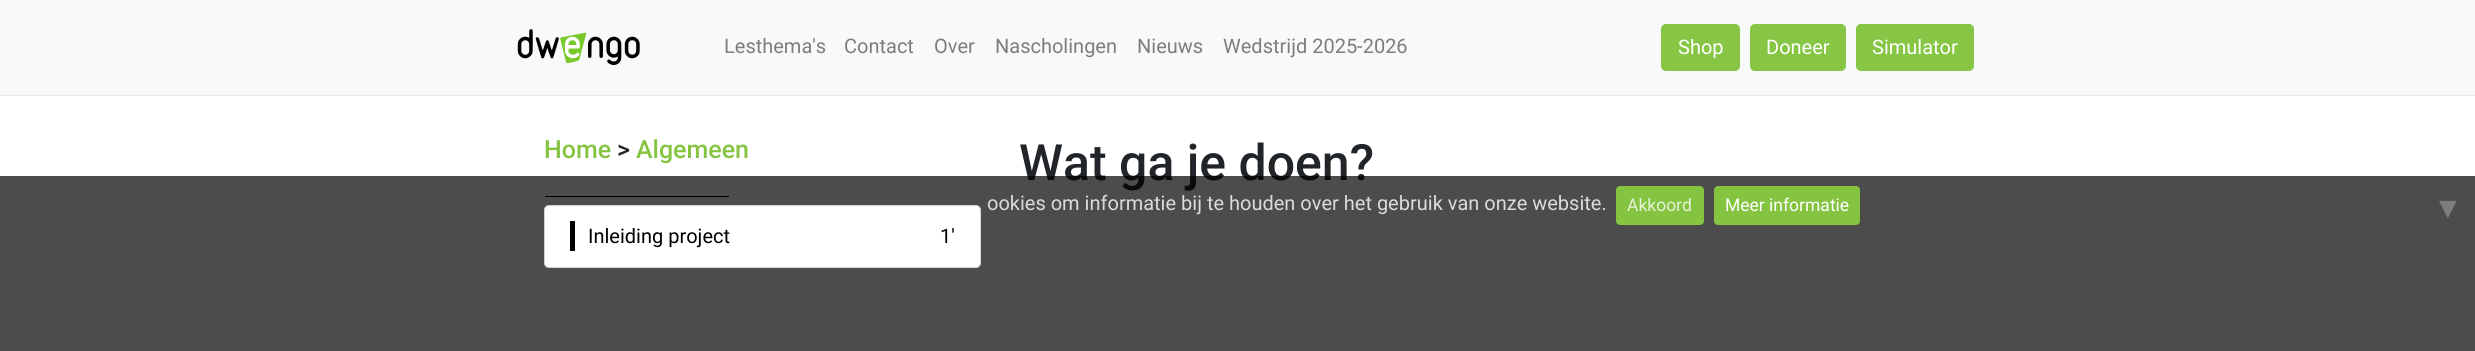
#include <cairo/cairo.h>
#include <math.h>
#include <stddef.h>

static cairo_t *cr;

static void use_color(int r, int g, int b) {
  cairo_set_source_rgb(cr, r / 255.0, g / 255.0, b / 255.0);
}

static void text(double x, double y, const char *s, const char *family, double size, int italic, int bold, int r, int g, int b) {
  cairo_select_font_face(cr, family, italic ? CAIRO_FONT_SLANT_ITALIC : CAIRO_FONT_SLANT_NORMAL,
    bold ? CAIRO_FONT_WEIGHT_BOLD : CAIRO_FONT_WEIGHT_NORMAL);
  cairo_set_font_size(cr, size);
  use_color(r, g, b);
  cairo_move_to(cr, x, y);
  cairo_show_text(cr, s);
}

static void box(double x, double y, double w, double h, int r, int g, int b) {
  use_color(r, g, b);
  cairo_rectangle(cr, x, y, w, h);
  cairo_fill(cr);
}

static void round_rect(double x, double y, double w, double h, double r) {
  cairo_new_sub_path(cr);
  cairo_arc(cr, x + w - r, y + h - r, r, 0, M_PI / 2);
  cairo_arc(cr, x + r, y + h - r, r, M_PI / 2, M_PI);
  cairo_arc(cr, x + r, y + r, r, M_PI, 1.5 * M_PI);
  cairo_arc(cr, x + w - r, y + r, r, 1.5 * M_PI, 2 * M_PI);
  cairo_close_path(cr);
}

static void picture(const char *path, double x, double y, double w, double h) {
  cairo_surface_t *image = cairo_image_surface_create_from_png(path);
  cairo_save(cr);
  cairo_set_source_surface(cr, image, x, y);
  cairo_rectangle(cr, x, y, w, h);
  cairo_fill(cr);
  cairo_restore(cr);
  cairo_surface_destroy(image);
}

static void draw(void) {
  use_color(255, 255, 255);
  cairo_paint(cr);
  box(0, 0, 2475, 95, 248, 249, 250);
  box(0, 95, 2475, 1, 232, 232, 232);
  picture("img_01.png", 517, 29, 123, 36);
  use_color(135, 197, 68);
  round_rect(1661, 24, 79, 47, 5);
  cairo_fill(cr);
  round_rect(1750, 24, 96, 47, 5);
  cairo_fill(cr);
  round_rect(1856, 24, 118, 47, 5);
  cairo_fill(cr);
  box(545, 196, 184, 1, 0, 0, 0);
  text(724, 53, "Lesthema's", "Roboto", 20, 0, 0, 124, 125, 125);
  text(844, 53, "Contact", "Roboto", 20, 0, 0, 124, 125, 125);
  text(934, 53, "Over", "Roboto", 20, 0, 0, 124, 125, 125);
  text(995, 53, "Nascholingen", "Roboto", 20, 0, 0, 124, 125, 125);
  text(1137, 53, "Nieuws", "Roboto", 20, 0, 0, 124, 125, 125);
  text(1223, 53, "Wedstrijd 2025-2026", "Roboto", 20, 0, 0, 124, 125, 125);
  text(1678, 54, "Shop", "Roboto", 20, 0, 0, 255, 255, 255);
  text(1766, 54, "Doneer", "Roboto", 20, 0, 0, 255, 255, 255);
  text(1872, 54, "Simulator", "Roboto", 20, 0, 0, 255, 255, 255);
  text(544, 158, "Home", "Roboto Medium", 25, 0, 0, 133, 196, 65);
  text(617, 158, ">", "Roboto Medium", 25, 0, 0, 33, 37, 41);
  text(636, 158, "Algemeen", "Roboto Medium", 25, 0, 0, 133, 196, 65);
  text(1019, 180, "Wat ga je doen?", "Roboto Medium", 50, 0, 0, 33, 37, 41);
  cairo_set_source_rgba(cr, 0, 0, 0, 0.7);
  cairo_rectangle(cr, 0, 176, 2475, 175);
  cairo_fill(cr);
  use_color(255, 255, 255);
  round_rect(544.5, 205.5, 436, 62, 4.5);
  cairo_fill_preserve(cr);
  use_color(206, 212, 218);
  cairo_set_line_width(cr, 1);
  cairo_stroke(cr);
  text(940, 243, "1'", "Roboto", 20, 0, 0, 0, 0, 0);
  text(588, 243, "Inleiding project", "Roboto", 20, 0, 0, 0, 0, 0);
  box(570, 221, 5, 30, 0, 0, 0);
  text(987, 210, "ookies om informatie bij te houden over het gebruik van onze website.", "Roboto", 20, 0, 0, 219, 219, 219);
  use_color(133, 196, 65);
  round_rect(1616.5, 186.5, 87, 38, 3.5);
  cairo_fill_preserve(cr);
  cairo_stroke(cr);
  text(1627, 211, "Akkoord", "Roboto", 17.5, 0, 0, 231, 243, 217);
  use_color(133, 196, 65);
  round_rect(1714.5, 186.5, 145, 38, 3.5);
  cairo_fill_preserve(cr);
  cairo_stroke(cr);
  text(1725, 211, "Meer informatie", "Roboto", 17.5, 0, 0, 255, 255, 255);
  text(2433, 218, "▼", "Liberation Sans", 30, 0, 0, 124, 125, 125);
}

int main(void) {
  cairo_surface_t *surface = cairo_image_surface_create(CAIRO_FORMAT_RGB24, 2475, 351);
  cr = cairo_create(surface);
  cairo_font_options_t *options = cairo_font_options_create();
  cairo_font_options_set_hint_metrics(options, CAIRO_HINT_METRICS_OFF);
  cairo_font_options_set_hint_style(options, CAIRO_HINT_STYLE_NONE);
  cairo_set_font_options(cr, options);
  cairo_set_miter_limit(cr, 4);
  draw();
  cairo_surface_write_to_png(surface, "out.png");
  cairo_font_options_destroy(options);
  cairo_destroy(cr);
  cairo_surface_destroy(surface);
  return 0;
}
